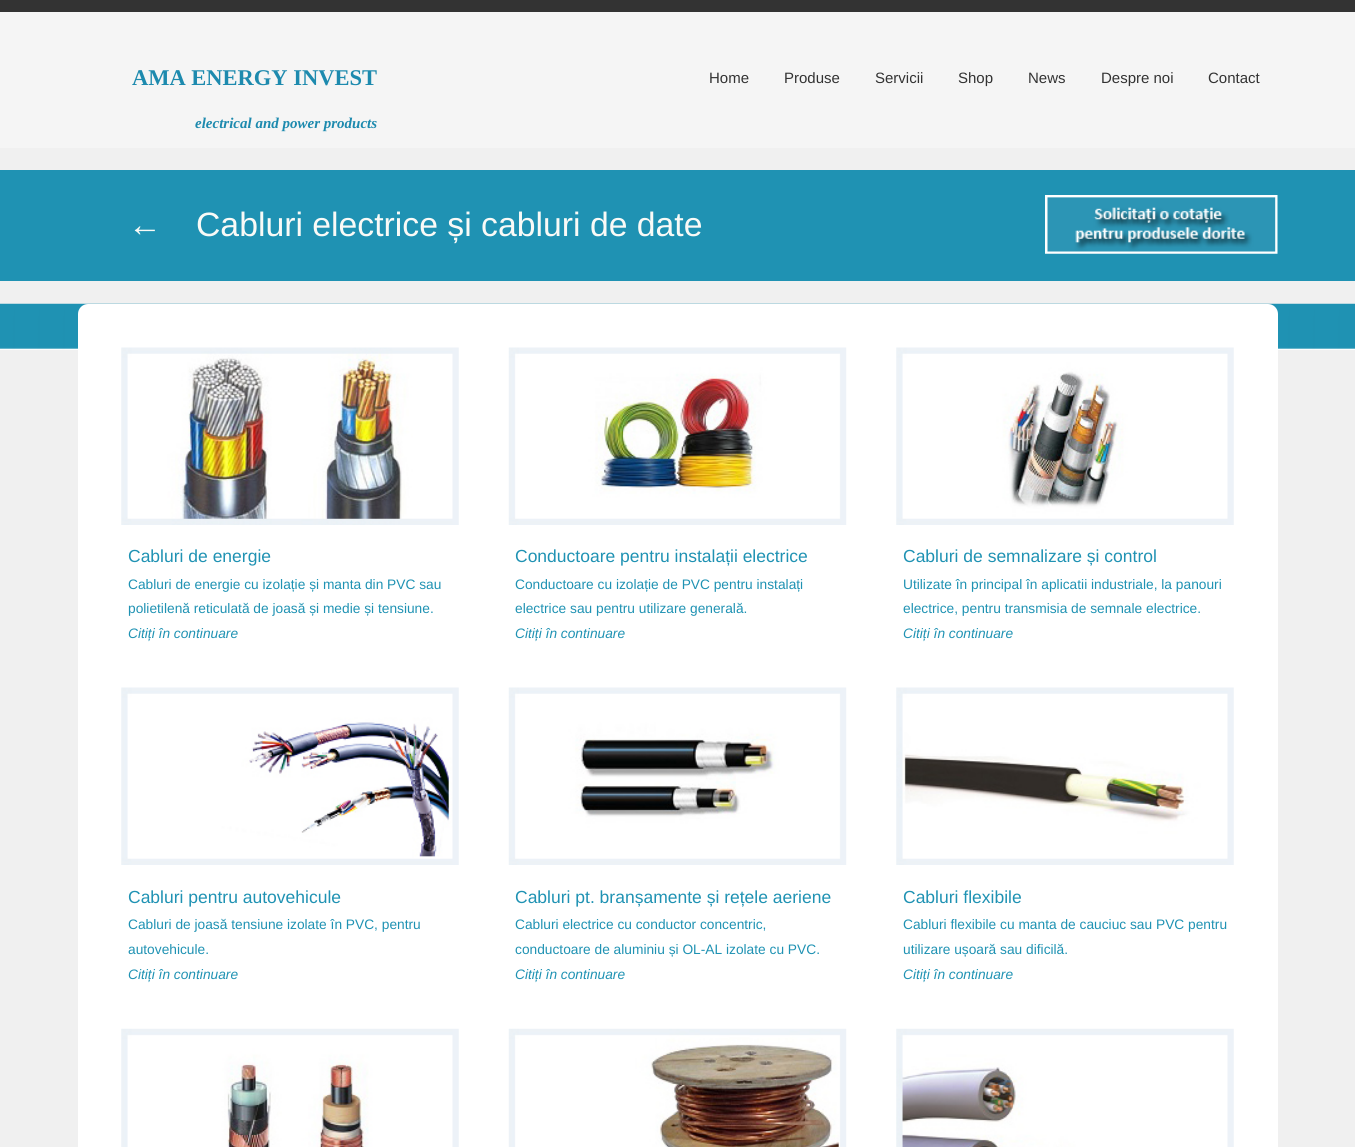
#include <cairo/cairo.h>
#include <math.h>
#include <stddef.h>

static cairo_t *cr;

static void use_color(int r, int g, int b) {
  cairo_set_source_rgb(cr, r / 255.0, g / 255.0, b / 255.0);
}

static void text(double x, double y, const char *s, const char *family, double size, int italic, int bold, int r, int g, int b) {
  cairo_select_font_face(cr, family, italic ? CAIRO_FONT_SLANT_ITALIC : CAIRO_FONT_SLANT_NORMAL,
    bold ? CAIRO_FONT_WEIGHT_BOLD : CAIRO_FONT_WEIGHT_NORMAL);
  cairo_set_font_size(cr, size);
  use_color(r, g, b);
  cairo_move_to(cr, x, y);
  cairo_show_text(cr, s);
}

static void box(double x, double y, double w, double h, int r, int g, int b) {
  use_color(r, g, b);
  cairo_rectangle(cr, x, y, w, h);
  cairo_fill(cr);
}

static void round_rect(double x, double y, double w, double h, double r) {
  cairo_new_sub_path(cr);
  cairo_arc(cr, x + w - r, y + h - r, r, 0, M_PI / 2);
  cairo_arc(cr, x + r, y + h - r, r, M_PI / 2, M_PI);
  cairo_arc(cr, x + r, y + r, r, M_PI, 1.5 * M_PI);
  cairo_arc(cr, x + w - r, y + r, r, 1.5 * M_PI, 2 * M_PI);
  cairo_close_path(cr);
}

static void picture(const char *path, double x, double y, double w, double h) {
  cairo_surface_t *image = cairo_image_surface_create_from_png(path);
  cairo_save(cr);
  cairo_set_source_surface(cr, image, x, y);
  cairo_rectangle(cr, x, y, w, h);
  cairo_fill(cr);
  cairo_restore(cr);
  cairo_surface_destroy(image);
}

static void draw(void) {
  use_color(240, 240, 240);
  cairo_paint(cr);
  box(0, 12, 1355, 136, 245, 245, 245);
  box(0, 0, 1355, 12, 51, 51, 51);
  box(0, 170, 1355, 111, 31, 146, 179);
  picture("img_01.png", 1045, 195, 233, 59);
  picture("img_02.png", 0, 303, 1355, 47);
  use_color(255, 255, 255);
  round_rect(78, 304, 1200, 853, 10);
  cairo_fill(cr);
  picture("img_03.png", 121, 347, 338, 178);
  picture("img_04.png", 508, 347, 339, 178);
  picture("img_05.png", 896, 347, 338, 178);
  picture("img_06.png", 121, 687, 338, 178);
  picture("img_07.png", 508, 687, 339, 178);
  picture("img_08.png", 896, 687, 338, 178);
  picture("img_09.png", 121, 1028, 338, 119);
  picture("img_10.png", 508, 1028, 339, 119);
  picture("img_11.png", 896, 1028, 338, 119);
  text(132, 85, "AMA ENERGY INVEST", "Liberation Serif", 22.5, 0, 1, 29, 138, 174);
  text(195, 128, "electrical and power products", "Liberation Serif", 15, 1, 1, 29, 138, 174);
  text(709, 83, "Home", "Liberation Sans", 15, 0, 0, 51, 51, 51);
  text(784, 83, "Produse", "Liberation Sans", 15, 0, 0, 51, 51, 51);
  text(875, 83, "Servicii", "Liberation Sans", 15, 0, 0, 51, 51, 51);
  text(958, 83, "Shop", "Liberation Sans", 15, 0, 0, 51, 51, 51);
  text(1028, 83, "News", "Liberation Sans", 15, 0, 0, 51, 51, 51);
  text(1101, 83, "Despre noi", "Liberation Sans", 15, 0, 0, 51, 51, 51);
  text(1208, 83, "Contact", "Liberation Sans", 15, 0, 0, 51, 51, 51);
  text(128, 236, "←", "Liberation Sans", 33.75, 0, 0, 249, 250, 247);
  text(196, 236, "Cabluri electrice și cabluri de date", "Liberation Sans", 33.75, 0, 0, 249, 250, 247);
  text(128, 562, "Cabluri de energie", "Liberation Sans", 17.5, 0, 0, 31, 146, 179);
  text(128, 589, "Cabluri de energie cu izolație și manta din PVC sau", "Liberation Sans", 13.75, 0, 0, 31, 146, 179);
  text(128, 613, "polietilenă reticulată de joasă și medie și tensiune.", "Liberation Sans", 13.75, 0, 0, 31, 146, 179);
  text(128, 638, "Citiți în continuare", "Liberation Sans", 13.75, 1, 0, 31, 146, 179);
  text(515, 562, "Conductoare pentru instalații electrice", "Liberation Sans", 17.5, 0, 0, 31, 146, 179);
  text(515, 589, "Conductoare cu izolație de PVC pentru instalați", "Liberation Sans", 13.75, 0, 0, 31, 146, 179);
  text(515, 613, "electrice sau pentru utilizare generală.", "Liberation Sans", 13.75, 0, 0, 31, 146, 179);
  text(515, 638, "Citiți în continuare", "Liberation Sans", 13.75, 1, 0, 31, 146, 179);
  text(903, 562, "Cabluri de semnalizare și control", "Liberation Sans", 17.5, 0, 0, 31, 146, 179);
  text(903, 589, "Utilizate în principal în aplicatii industriale, la panouri", "Liberation Sans", 13.75, 0, 0, 31, 146, 179);
  text(903, 613, "electrice, pentru transmisia de semnale electrice.", "Liberation Sans", 13.75, 0, 0, 31, 146, 179);
  text(903, 638, "Citiți în continuare", "Liberation Sans", 13.75, 1, 0, 31, 146, 179);
  text(128, 903, "Cabluri pentru autovehicule", "Liberation Sans", 17.5, 0, 0, 31, 146, 179);
  text(128, 929, "Cabluri de joasă tensiune izolate în PVC, pentru", "Liberation Sans", 13.75, 0, 0, 31, 146, 179);
  text(128, 954, "autovehicule.", "Liberation Sans", 13.75, 0, 0, 31, 146, 179);
  text(128, 979, "Citiți în continuare", "Liberation Sans", 13.75, 1, 0, 31, 146, 179);
  text(515, 903, "Cabluri pt. branșamente și rețele aeriene", "Liberation Sans", 17.5, 0, 0, 31, 146, 179);
  text(515, 929, "Cabluri electrice cu conductor concentric,", "Liberation Sans", 13.75, 0, 0, 31, 146, 179);
  text(515, 954, "conductoare de aluminiu și OL-AL izolate cu PVC.", "Liberation Sans", 13.75, 0, 0, 31, 146, 179);
  text(515, 979, "Citiți în continuare", "Liberation Sans", 13.75, 1, 0, 31, 146, 179);
  text(903, 903, "Cabluri flexibile", "Liberation Sans", 17.5, 0, 0, 31, 146, 179);
  text(903, 929, "Cabluri flexibile cu manta de cauciuc sau PVC pentru", "Liberation Sans", 13.75, 0, 0, 31, 146, 179);
  text(903, 954, "utilizare ușoară sau dificilă.", "Liberation Sans", 13.75, 0, 0, 31, 146, 179);
  text(903, 979, "Citiți în continuare", "Liberation Sans", 13.75, 1, 0, 31, 146, 179);
}

int main(void) {
  cairo_surface_t *surface = cairo_image_surface_create(CAIRO_FORMAT_RGB24, 1355, 1147);
  cr = cairo_create(surface);
  cairo_font_options_t *options = cairo_font_options_create();
  cairo_font_options_set_hint_metrics(options, CAIRO_HINT_METRICS_OFF);
  cairo_font_options_set_hint_style(options, CAIRO_HINT_STYLE_NONE);
  cairo_set_font_options(cr, options);
  cairo_set_miter_limit(cr, 4);
  draw();
  cairo_surface_write_to_png(surface, "out.png");
  cairo_font_options_destroy(options);
  cairo_destroy(cr);
  cairo_surface_destroy(surface);
  return 0;
}
